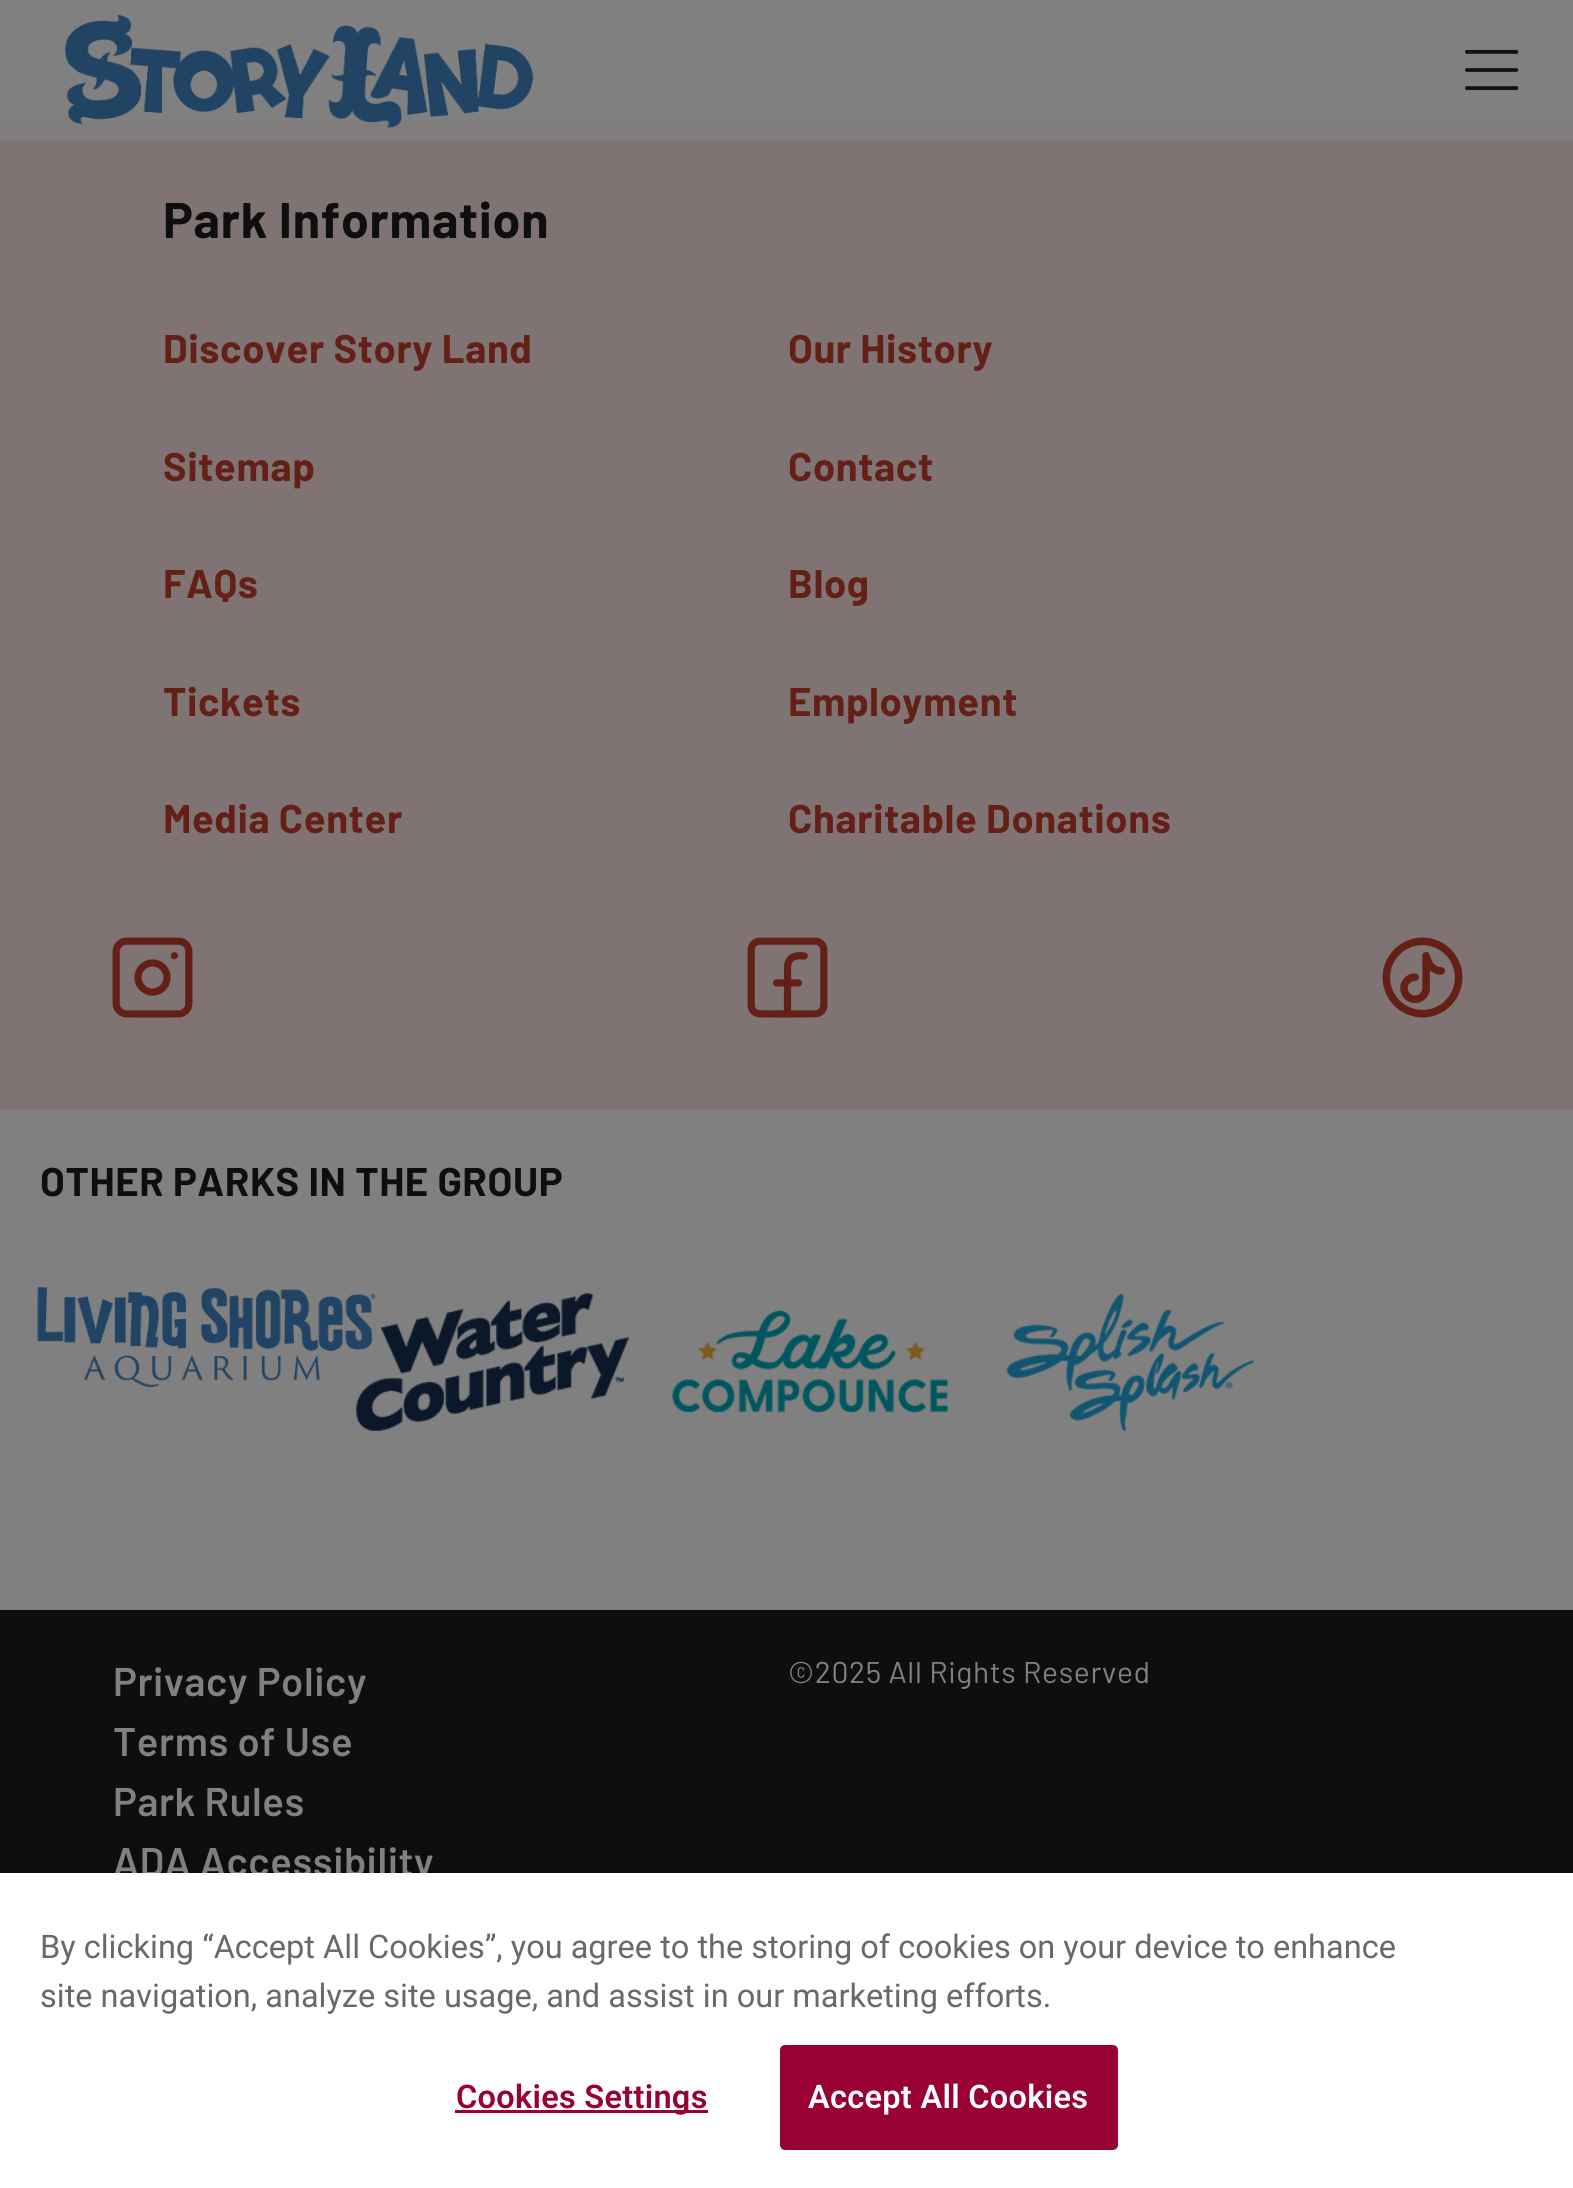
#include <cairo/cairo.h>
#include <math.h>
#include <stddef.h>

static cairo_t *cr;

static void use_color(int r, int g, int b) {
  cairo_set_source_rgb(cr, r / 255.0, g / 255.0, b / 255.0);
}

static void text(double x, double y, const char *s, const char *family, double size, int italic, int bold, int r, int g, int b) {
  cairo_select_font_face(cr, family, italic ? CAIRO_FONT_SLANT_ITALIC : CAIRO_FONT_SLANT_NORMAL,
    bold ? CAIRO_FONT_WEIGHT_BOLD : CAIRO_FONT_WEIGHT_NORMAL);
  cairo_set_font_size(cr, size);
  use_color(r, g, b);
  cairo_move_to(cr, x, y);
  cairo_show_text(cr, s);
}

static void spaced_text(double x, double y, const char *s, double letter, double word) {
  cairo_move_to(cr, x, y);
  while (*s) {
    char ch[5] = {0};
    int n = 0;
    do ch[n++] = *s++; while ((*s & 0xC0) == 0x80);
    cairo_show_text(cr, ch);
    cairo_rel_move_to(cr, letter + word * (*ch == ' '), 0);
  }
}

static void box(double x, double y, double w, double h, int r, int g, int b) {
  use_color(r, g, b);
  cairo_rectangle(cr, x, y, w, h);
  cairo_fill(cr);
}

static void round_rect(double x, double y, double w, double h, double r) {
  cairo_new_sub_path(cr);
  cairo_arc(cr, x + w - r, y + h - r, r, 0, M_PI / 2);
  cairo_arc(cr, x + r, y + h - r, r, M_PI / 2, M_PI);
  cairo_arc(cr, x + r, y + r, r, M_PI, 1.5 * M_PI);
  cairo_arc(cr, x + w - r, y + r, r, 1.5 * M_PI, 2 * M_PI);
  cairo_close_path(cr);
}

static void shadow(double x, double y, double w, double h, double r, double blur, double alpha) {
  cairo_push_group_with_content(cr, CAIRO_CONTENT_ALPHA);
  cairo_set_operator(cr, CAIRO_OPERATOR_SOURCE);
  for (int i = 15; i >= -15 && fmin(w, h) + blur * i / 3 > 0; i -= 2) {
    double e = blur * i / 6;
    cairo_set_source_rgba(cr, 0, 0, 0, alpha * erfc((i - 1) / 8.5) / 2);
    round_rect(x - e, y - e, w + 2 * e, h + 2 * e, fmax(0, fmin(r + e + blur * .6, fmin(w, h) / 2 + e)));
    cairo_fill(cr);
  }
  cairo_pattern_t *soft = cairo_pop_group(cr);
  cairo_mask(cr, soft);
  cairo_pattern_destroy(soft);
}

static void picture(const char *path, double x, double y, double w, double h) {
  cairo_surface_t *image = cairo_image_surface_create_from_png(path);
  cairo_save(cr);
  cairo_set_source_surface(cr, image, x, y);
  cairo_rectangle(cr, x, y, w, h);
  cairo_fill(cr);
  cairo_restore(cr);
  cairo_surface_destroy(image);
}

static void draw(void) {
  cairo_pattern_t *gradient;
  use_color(128, 128, 128);
  cairo_paint(cr);
  box(0, 120, 1573, 990, 127, 116, 115);
  gradient = cairo_pattern_create_linear(788, 0, 788, 140);
  cairo_pattern_add_color_stop_rgba(gradient, 0, 0.502, 0.502, 0.502, 1);
  cairo_pattern_add_color_stop_rgba(gradient, 1, 0.502, 0.502, 0.502, 0.66);
  cairo_set_source(cr, gradient);
  cairo_pattern_destroy(gradient);
  cairo_rectangle(cr, 0, 120, 1573, 20);
  cairo_fill(cr);
  picture("img_01.png", 65, 15, 468, 113);
  picture("img_02.png", 1465, 49, 54, 42);
  picture("img_03.png", 112, 937, 81, 81);
  picture("img_04.png", 747, 937, 81, 81);
  picture("img_05.png", 1382, 937, 81, 81);
  picture("img_06.png", 37, 1287, 338, 100);
  picture("img_07.png", 356, 1293, 273, 138);
  picture("img_08.png", 672, 1310, 276, 103);
  picture("img_09.png", 1006, 1293, 248, 138);
  box(0, 1610, 1573, 263, 14, 14, 14);
  use_color(0, 0, 0);
  shadow(0, 1873, 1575, 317, 0, 22.5, 0.2);
  cairo_select_font_face(cr, "Barlow", CAIRO_FONT_SLANT_NORMAL, CAIRO_FONT_WEIGHT_BOLD);
  cairo_set_font_size(cr, 50);
  use_color(14, 14, 14);
  spaced_text(163, 238, "Park Information", 0.75, 0);
  cairo_set_font_size(cr, 40);
  use_color(100, 32, 23);
  spaced_text(163, 363, "Discover Story Land", 0.6, 0);
  spaced_text(788, 363, "Our History", 0.6, 0);
  spaced_text(163, 481, "Sitemap", 0.6, 0);
  spaced_text(788, 481, "Contact", 0.6, 0);
  spaced_text(163, 598, "FAQs", 0.6, 0);
  spaced_text(788, 598, "Blog", 0.6, 0);
  spaced_text(163, 716, "Tickets", 0.6, 0);
  spaced_text(788, 716, "Employment", 0.6, 0);
  spaced_text(163, 833, "Media Center", 0.6, 0);
  spaced_text(788, 833, "Charitable Donations", 0.6, 0);
  use_color(14, 14, 14);
  spaced_text(40, 1196, "OTHER PARKS IN THE GROUP", 0.6, 0);
  cairo_select_font_face(cr, "Barlow SemiBold", CAIRO_FONT_SLANT_NORMAL, CAIRO_FONT_WEIGHT_NORMAL);
  use_color(128, 128, 128);
  spaced_text(113, 1696, "Privacy Policy", 0.6, 0);
  spaced_text(113, 1756, "Terms of Use", 0.6, 0);
  spaced_text(113, 1816, "Park Rules", 0.6, 0);
  spaced_text(113, 1876, "ADA Accessibility", 0.6, 0);
  cairo_select_font_face(cr, "Barlow", CAIRO_FONT_SLANT_NORMAL, CAIRO_FONT_WEIGHT_NORMAL);
  cairo_set_font_size(cr, 30);
  spaced_text(788, 1683, "©2025 All Rights Reserved", 0.65, 0);
  box(0, 1873, 1573, 315, 255, 255, 255);
  text(40, 1958, "By clicking “Accept All Cookies”, you agree to the storing of cookies on your device to enhance", "Roboto", 32.5, 0, 0, 105, 105, 105);
  text(40, 2007, "site navigation, analyze site usage, and assist in our marketing efforts.", "Roboto", 32.5, 0, 0, 105, 105, 105);
  box(455, 2110, 253, 3, 153, 0, 51);
  cairo_select_font_face(cr, "Roboto SemiBold", CAIRO_FONT_SLANT_NORMAL, CAIRO_FONT_WEIGHT_NORMAL);
  spaced_text(456, 2108, "Cookies Settings", 0.3, 0);
  round_rect(781.5, 2046.5, 335, 102, 3.5);
  cairo_fill_preserve(cr);
  cairo_set_line_width(cr, 3);
  cairo_stroke(cr);
  use_color(255, 255, 255);
  spaced_text(808, 2108, "Accept All Cookies", 0.3, 0);
}

int main(void) {
  cairo_surface_t *surface = cairo_image_surface_create(CAIRO_FORMAT_RGB24, 1573, 2188);
  cr = cairo_create(surface);
  cairo_font_options_t *options = cairo_font_options_create();
  cairo_font_options_set_hint_metrics(options, CAIRO_HINT_METRICS_OFF);
  cairo_font_options_set_hint_style(options, CAIRO_HINT_STYLE_NONE);
  cairo_set_font_options(cr, options);
  cairo_set_miter_limit(cr, 4);
  draw();
  cairo_surface_write_to_png(surface, "out.png");
  cairo_font_options_destroy(options);
  cairo_destroy(cr);
  cairo_surface_destroy(surface);
  return 0;
}
